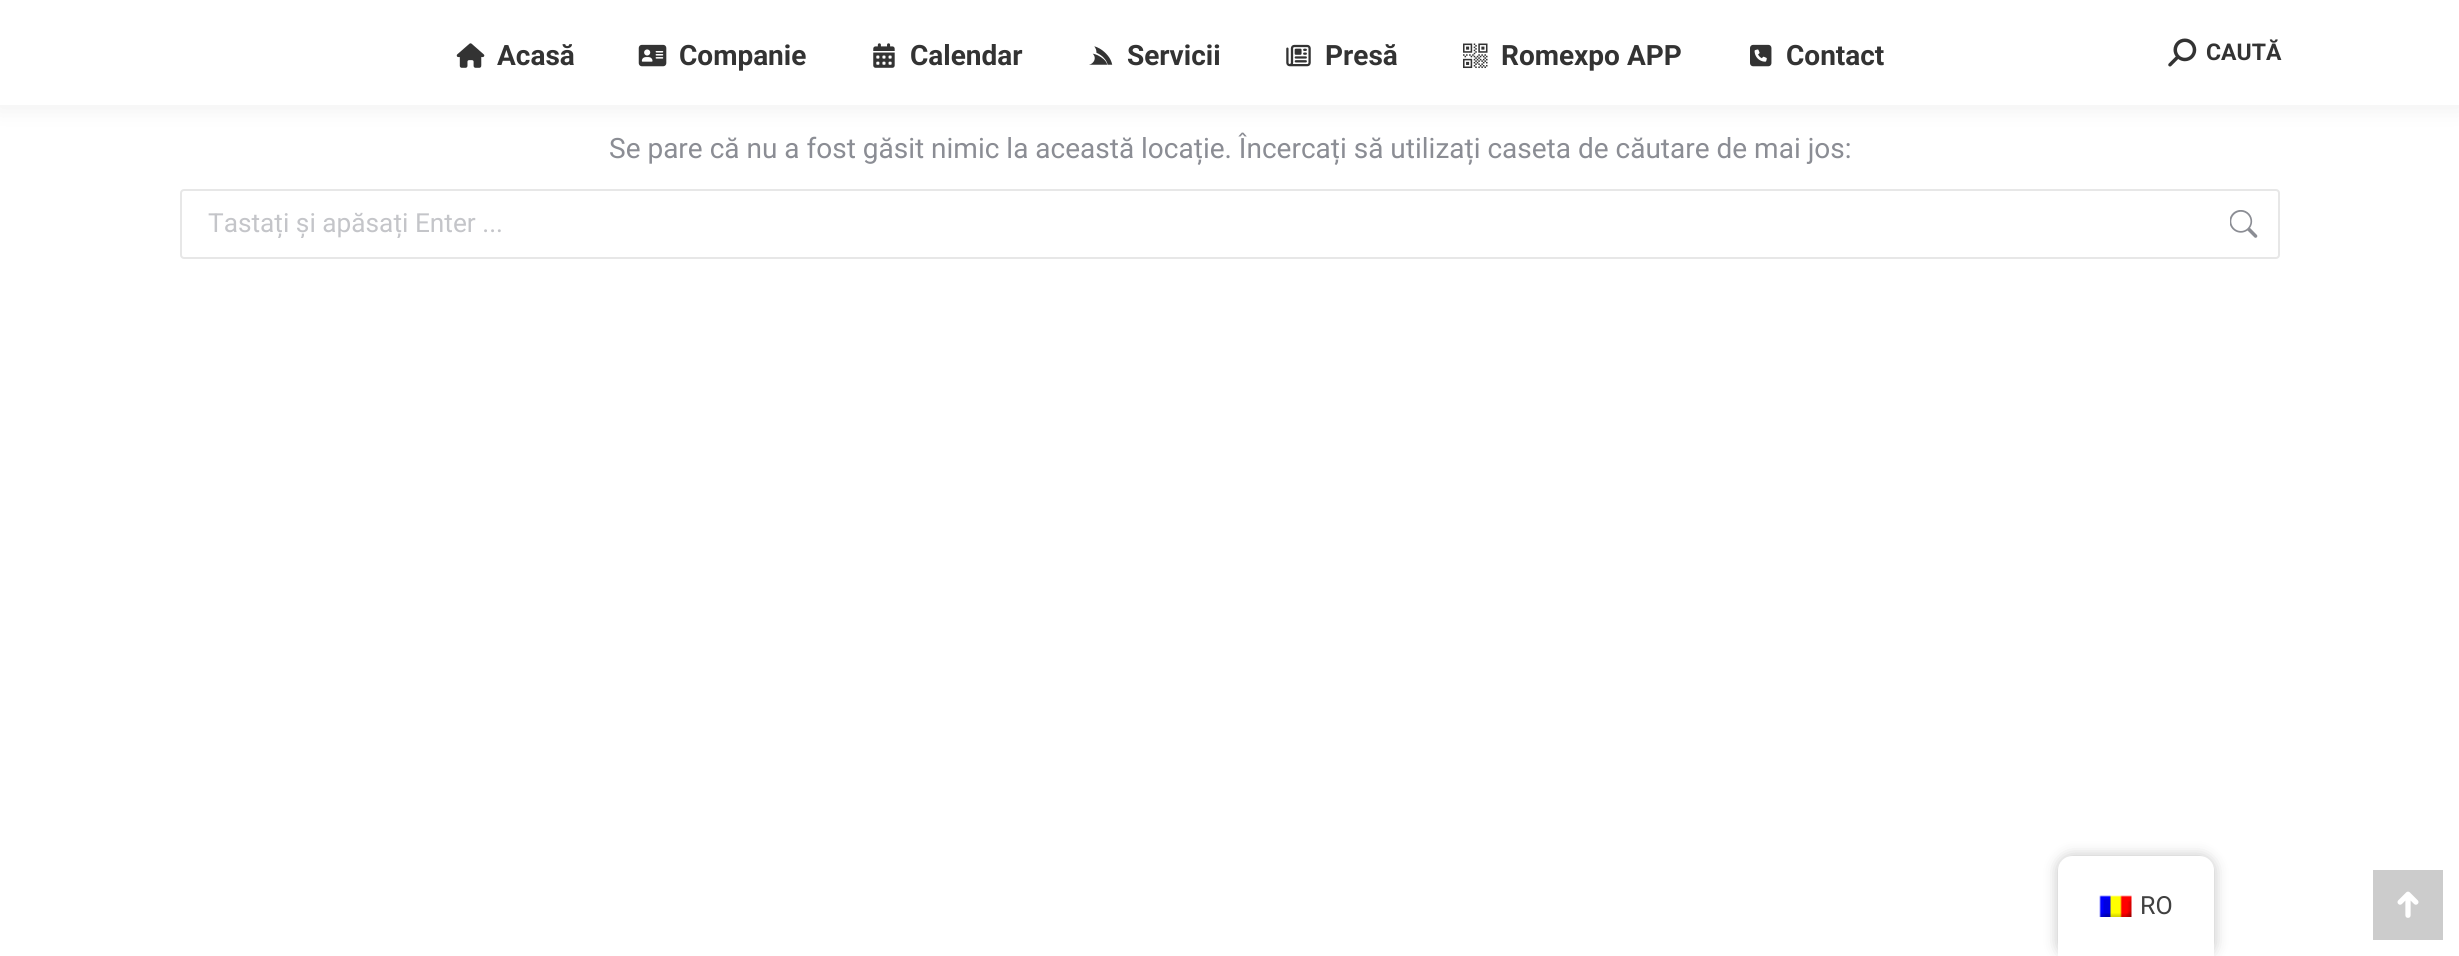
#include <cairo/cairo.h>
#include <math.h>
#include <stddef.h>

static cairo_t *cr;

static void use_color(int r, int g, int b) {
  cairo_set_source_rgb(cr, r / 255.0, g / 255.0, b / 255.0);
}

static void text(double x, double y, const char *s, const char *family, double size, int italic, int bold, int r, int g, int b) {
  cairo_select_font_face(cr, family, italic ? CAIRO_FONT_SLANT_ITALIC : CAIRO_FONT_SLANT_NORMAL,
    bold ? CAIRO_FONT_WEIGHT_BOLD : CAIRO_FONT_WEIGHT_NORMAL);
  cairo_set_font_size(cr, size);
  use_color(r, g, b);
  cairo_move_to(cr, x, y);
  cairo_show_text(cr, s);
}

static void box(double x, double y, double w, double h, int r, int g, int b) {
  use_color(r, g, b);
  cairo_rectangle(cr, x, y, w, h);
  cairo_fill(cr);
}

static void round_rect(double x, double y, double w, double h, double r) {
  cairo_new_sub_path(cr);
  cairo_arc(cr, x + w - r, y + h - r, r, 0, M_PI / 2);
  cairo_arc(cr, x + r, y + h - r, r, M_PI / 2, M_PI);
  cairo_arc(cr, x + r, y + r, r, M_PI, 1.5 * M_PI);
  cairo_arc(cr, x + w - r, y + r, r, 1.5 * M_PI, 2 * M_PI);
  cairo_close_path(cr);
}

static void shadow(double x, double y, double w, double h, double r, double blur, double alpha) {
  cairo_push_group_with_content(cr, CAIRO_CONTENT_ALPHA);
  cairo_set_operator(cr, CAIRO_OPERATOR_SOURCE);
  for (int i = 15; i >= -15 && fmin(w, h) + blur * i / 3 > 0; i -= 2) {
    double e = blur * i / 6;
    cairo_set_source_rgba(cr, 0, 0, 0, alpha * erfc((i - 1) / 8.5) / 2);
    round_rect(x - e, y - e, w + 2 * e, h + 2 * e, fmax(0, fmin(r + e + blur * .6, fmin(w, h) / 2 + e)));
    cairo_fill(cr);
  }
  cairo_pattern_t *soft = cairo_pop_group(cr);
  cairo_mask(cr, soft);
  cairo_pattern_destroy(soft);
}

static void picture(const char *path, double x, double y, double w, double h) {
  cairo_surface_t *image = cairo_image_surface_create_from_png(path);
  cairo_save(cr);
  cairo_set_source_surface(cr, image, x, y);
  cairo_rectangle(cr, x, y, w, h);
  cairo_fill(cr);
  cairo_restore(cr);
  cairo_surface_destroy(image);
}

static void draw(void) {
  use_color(255, 255, 255);
  cairo_paint(cr);
  use_color(0, 0, 0);
  shadow(-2, -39, 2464, 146, 0, 13, 0.07);
  box(0, 0, 2459, 105, 255, 255, 255);
  picture("img_01.png", 456, 43, 29, 25);
  picture("img_02.png", 638, 44, 29, 23);
  picture("img_03.png", 873, 43, 22, 25);
  picture("img_04.png", 1089, 46, 24, 19);
  picture("img_05.png", 1286, 44, 25, 23);
  picture("img_06.png", 1463, 43, 25, 26);
  picture("img_07.png", 1750, 44, 22, 23);
  picture("img_08.png", 2168, 38, 29, 29);
  round_rect(181, 190, 2098, 68, 3);
  use_color(231, 231, 231);
  cairo_stroke(cr);
  picture("img_09.png", 2230, 210, 28, 28);
  box(2373, 870, 70, 70, 204, 204, 204);
  picture("img_10.png", 2397, 891, 22, 27);
  use_color(0, 0, 0);
  shadow(2058, 856, 156, 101, 14, 7, 0.25);
  use_color(255, 255, 255);
  cairo_new_path(cr);
  cairo_move_to(cr, 2072, 856);
  cairo_line_to(cr, 2200, 856);
  cairo_curve_to(cr, 2207.5, 856, 2214, 862.5, 2214, 870);
  cairo_line_to(cr, 2214, 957);
  cairo_line_to(cr, 2058, 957);
  cairo_line_to(cr, 2058, 870);
  cairo_curve_to(cr, 2058, 862.5, 2064.5, 856, 2072, 856);
  cairo_close_path(cr);
  cairo_fill(cr);
  picture("img_11.png", 2099, 895, 33, 22);
  text(497, 65, "Acasă", "Roboto", 28, 0, 1, 51, 51, 51);
  text(679, 65, "Companie", "Roboto", 28, 0, 1, 51, 51, 51);
  text(910, 65, "Calendar", "Roboto", 28, 0, 1, 51, 51, 51);
  text(1127, 65, "Servicii", "Roboto", 28, 0, 1, 51, 51, 51);
  text(1325, 65, "Presă", "Roboto", 28, 0, 1, 51, 51, 51);
  text(1501, 65, "Romexpo APP", "Roboto", 28, 0, 1, 51, 51, 51);
  text(1786, 65, "Contact", "Roboto", 28, 0, 1, 51, 51, 51);
  text(2206, 60, "CAUTĂ", "Roboto", 23, 0, 1, 51, 51, 51);
  text(609, 158, "Se pare că nu a fost găsit nimic la această locație. Încercați să utilizați caseta de căutare de mai jos:", "Roboto", 28, 0, 0, 139, 141, 148);
  cairo_save(cr);
  cairo_rectangle(cr, 208, 207, 2018, 31);
  cairo_clip(cr);
  text(208, 232, "Tastați și apăsați Enter ...", "Roboto", 26.25, 0, 0, 196, 197, 201);
  cairo_restore(cr);
  text(2140, 914, "RO", "Roboto", 25, 0, 0, 64, 64, 64);
}

int main(void) {
  cairo_surface_t *surface = cairo_image_surface_create(CAIRO_FORMAT_RGB24, 2459, 956);
  cr = cairo_create(surface);
  cairo_font_options_t *options = cairo_font_options_create();
  cairo_font_options_set_hint_metrics(options, CAIRO_HINT_METRICS_OFF);
  cairo_font_options_set_hint_style(options, CAIRO_HINT_STYLE_NONE);
  cairo_set_font_options(cr, options);
  cairo_set_miter_limit(cr, 4);
  draw();
  cairo_surface_write_to_png(surface, "out.png");
  cairo_font_options_destroy(options);
  cairo_destroy(cr);
  cairo_surface_destroy(surface);
  return 0;
}
